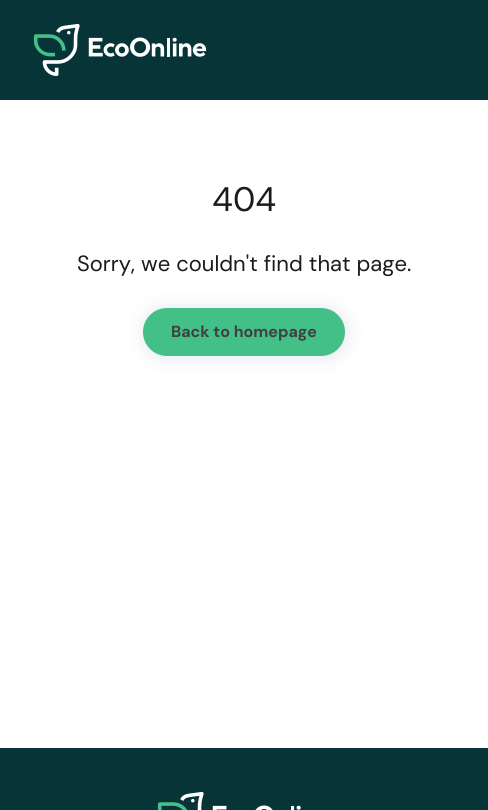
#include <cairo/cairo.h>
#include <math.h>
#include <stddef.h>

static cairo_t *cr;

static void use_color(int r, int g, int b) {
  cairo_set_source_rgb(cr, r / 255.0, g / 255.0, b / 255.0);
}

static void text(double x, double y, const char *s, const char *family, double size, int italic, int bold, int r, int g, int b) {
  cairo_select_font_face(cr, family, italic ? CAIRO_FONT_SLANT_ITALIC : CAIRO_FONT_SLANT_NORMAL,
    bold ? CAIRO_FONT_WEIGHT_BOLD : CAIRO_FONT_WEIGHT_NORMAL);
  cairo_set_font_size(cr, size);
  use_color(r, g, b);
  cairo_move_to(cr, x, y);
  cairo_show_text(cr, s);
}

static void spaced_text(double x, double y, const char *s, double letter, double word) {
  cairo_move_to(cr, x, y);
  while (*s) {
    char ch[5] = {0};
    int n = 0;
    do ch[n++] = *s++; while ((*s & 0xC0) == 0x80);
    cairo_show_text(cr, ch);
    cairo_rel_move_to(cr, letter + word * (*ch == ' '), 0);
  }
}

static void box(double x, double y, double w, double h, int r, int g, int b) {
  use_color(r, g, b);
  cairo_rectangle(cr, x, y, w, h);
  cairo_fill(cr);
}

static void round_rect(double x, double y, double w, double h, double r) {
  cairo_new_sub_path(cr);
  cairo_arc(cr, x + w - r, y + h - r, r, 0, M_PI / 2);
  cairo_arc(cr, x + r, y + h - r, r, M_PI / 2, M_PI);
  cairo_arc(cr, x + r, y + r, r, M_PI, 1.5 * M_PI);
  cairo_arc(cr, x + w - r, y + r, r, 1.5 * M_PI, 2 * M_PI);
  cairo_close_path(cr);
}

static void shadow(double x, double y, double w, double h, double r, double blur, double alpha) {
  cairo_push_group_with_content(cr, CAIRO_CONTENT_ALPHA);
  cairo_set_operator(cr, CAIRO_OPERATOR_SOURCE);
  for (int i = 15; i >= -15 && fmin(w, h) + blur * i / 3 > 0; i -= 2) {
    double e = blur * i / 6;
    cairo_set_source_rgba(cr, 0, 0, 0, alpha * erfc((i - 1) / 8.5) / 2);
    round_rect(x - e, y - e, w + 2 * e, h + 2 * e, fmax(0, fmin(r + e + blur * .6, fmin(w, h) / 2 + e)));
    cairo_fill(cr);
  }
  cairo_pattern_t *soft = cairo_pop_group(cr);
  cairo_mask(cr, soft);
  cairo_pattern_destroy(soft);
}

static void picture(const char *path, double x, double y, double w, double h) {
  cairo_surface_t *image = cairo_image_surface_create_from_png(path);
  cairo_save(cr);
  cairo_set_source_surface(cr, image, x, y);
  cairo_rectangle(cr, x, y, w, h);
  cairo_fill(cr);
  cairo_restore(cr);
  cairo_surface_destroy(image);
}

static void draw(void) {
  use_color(255, 255, 255);
  cairo_paint(cr);
  box(0, 0, 488, 100, 6, 52, 55);
  picture("img_01.png", 33, 23, 174, 53);
  use_color(40, 50, 147);
  shadow(144, 309, 202, 48, 24, 10, 0.12);
  use_color(67, 191, 136);
  round_rect(144, 309, 200, 46, 23);
  cairo_fill_preserve(cr);
  cairo_stroke(cr);
  box(0, 748, 488, 62, 6, 52, 55);
  picture("img_02.png", 157, 791, 144, 19);
  text(212, 211, "404", "DM Sans", 34, 0, 0, 27, 27, 27);
  cairo_select_font_face(cr, "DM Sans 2", CAIRO_FONT_SLANT_NORMAL, CAIRO_FONT_WEIGHT_NORMAL);
  cairo_set_font_size(cr, 22);
  spaced_text(77, 271, "Sorry, we couldn't find that page.", 0, 0.25);
  text(171, 337, "Back to homepage", "DM Sans", 16, 0, 1, 64, 64, 64);
}

int main(void) {
  cairo_surface_t *surface = cairo_image_surface_create(CAIRO_FORMAT_RGB24, 488, 810);
  cr = cairo_create(surface);
  cairo_font_options_t *options = cairo_font_options_create();
  cairo_font_options_set_hint_metrics(options, CAIRO_HINT_METRICS_OFF);
  cairo_font_options_set_hint_style(options, CAIRO_HINT_STYLE_NONE);
  cairo_set_font_options(cr, options);
  cairo_set_miter_limit(cr, 4);
  draw();
  cairo_surface_write_to_png(surface, "out.png");
  cairo_font_options_destroy(options);
  cairo_destroy(cr);
  cairo_surface_destroy(surface);
  return 0;
}
